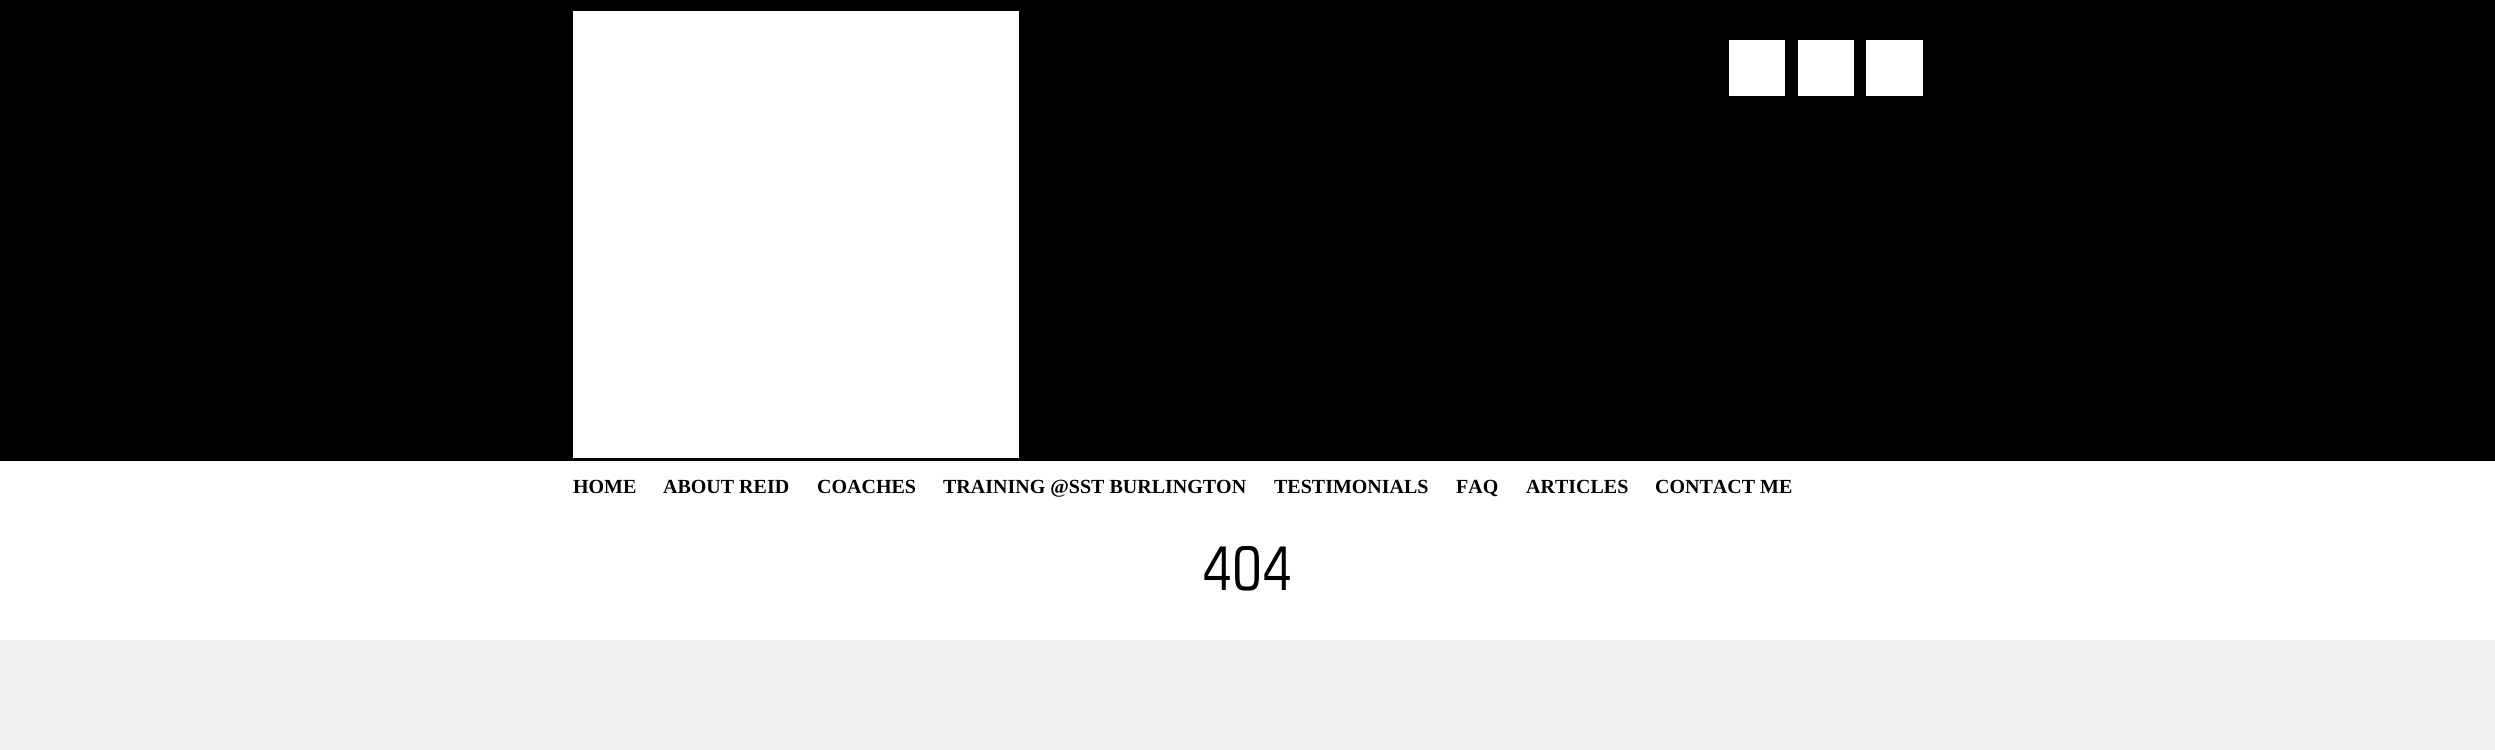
#include <cairo/cairo.h>
#include <math.h>
#include <stddef.h>

static cairo_t *cr;

static void use_color(int r, int g, int b) {
  cairo_set_source_rgb(cr, r / 255.0, g / 255.0, b / 255.0);
}

static void text(double x, double y, const char *s, const char *family, double size, int italic, int bold, int r, int g, int b) {
  cairo_select_font_face(cr, family, italic ? CAIRO_FONT_SLANT_ITALIC : CAIRO_FONT_SLANT_NORMAL,
    bold ? CAIRO_FONT_WEIGHT_BOLD : CAIRO_FONT_WEIGHT_NORMAL);
  cairo_set_font_size(cr, size);
  use_color(r, g, b);
  cairo_move_to(cr, x, y);
  cairo_show_text(cr, s);
}

static void box(double x, double y, double w, double h, int r, int g, int b) {
  use_color(r, g, b);
  cairo_rectangle(cr, x, y, w, h);
  cairo_fill(cr);
}

static void draw(void) {
  use_color(255, 255, 255);
  cairo_paint(cr);
  box(0, 0, 2495, 461, 0, 0, 0);
  box(573, 11, 446, 447, 255, 255, 255);
  box(1729, 40, 56, 56, 255, 255, 255);
  box(1798, 40, 56, 56, 255, 255, 255);
  box(1866, 40, 57, 56, 255, 255, 255);
  box(0, 640, 2495, 110, 239, 239, 239);
  text(573, 493, "HOME", "Liberation Serif", 20, 0, 1, 0, 0, 0);
  text(663, 493, "ABOUT REID", "Liberation Serif", 20, 0, 1, 0, 0, 0);
  text(817, 493, "COACHES", "Liberation Serif", 20, 0, 1, 0, 0, 0);
  text(943, 493, "TRAINING @SST BURLINGTON", "Liberation Serif", 20, 0, 1, 0, 0, 0);
  text(1274, 493, "TESTIMONIALS", "Liberation Serif", 20, 0, 1, 0, 0, 0);
  text(1456, 493, "FAQ", "Liberation Serif", 20, 0, 1, 0, 0, 0);
  text(1526, 493, "ARTICLES", "Liberation Serif", 20, 0, 1, 0, 0, 0);
  text(1655, 493, "CONTACT ME", "Liberation Serif", 20, 0, 1, 0, 0, 0);
  text(1202, 590, "404", "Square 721", 60, 0, 0, 0, 0, 0);
}

int main(void) {
  cairo_surface_t *surface = cairo_image_surface_create(CAIRO_FORMAT_RGB24, 2495, 750);
  cr = cairo_create(surface);
  cairo_font_options_t *options = cairo_font_options_create();
  cairo_font_options_set_hint_metrics(options, CAIRO_HINT_METRICS_OFF);
  cairo_font_options_set_hint_style(options, CAIRO_HINT_STYLE_NONE);
  cairo_set_font_options(cr, options);
  cairo_set_miter_limit(cr, 4);
  draw();
  cairo_surface_write_to_png(surface, "out.png");
  cairo_font_options_destroy(options);
  cairo_destroy(cr);
  cairo_surface_destroy(surface);
  return 0;
}
